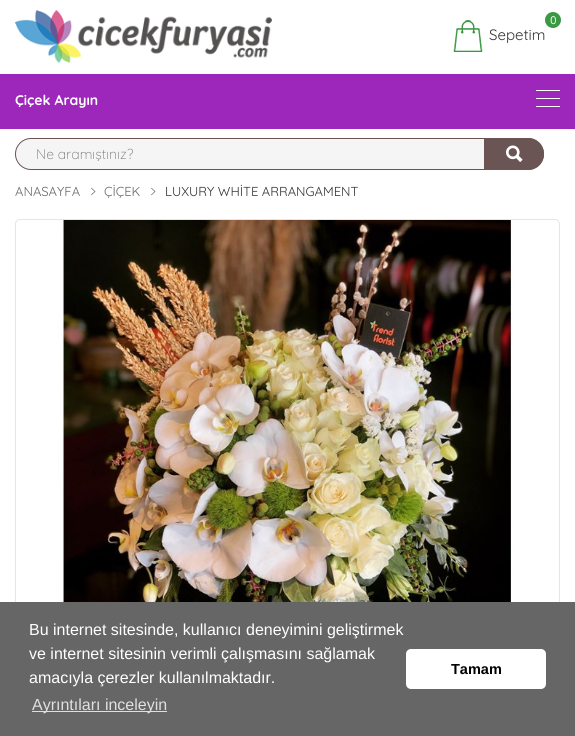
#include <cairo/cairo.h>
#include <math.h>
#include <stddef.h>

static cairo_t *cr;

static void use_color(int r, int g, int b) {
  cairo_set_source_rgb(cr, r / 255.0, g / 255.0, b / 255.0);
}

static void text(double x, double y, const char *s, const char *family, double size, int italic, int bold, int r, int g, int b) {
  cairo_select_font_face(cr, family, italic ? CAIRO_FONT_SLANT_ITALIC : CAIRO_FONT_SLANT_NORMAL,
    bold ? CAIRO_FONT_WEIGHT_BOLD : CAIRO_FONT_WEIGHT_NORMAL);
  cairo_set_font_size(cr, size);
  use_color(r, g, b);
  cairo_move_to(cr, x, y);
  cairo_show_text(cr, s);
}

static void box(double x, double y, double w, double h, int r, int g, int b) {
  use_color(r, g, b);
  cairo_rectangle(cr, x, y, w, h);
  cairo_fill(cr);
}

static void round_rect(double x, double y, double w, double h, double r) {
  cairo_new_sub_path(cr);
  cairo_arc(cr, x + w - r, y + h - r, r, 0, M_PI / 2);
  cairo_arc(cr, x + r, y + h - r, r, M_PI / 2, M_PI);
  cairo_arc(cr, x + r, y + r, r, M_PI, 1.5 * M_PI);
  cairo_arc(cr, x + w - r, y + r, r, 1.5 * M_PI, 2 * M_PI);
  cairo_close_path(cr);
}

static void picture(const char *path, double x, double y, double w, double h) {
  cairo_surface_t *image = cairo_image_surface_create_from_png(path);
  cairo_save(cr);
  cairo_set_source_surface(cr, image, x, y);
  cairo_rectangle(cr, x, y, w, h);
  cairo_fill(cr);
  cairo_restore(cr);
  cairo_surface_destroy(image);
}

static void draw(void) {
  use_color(255, 255, 255);
  cairo_paint(cr);
  picture("img_01.png", 15, 10, 257, 53);
  picture("img_02.png", 453, 20, 30, 32);
  use_color(58, 153, 67);
  cairo_arc(cr, 553, 20, 8, 0, 2 * M_PI);
  cairo_fill(cr);
  use_color(245, 245, 245);
  round_rect(15.5, 138.5, 528, 31, 15.5);
  cairo_fill_preserve(cr);
  use_color(107, 84, 84);
  cairo_set_line_width(cr, 1);
  cairo_stroke(cr);
  cairo_new_path(cr);
  cairo_move_to(cr, 484, 138);
  cairo_line_to(cr, 528, 138);
  cairo_curve_to(cr, 537, 138, 544, 145, 544, 154);
  cairo_curve_to(cr, 544, 163, 537, 170, 528, 170);
  cairo_line_to(cr, 484, 170);
  cairo_close_path(cr);
  cairo_fill(cr);
  picture("img_03.png", 506, 145, 17, 17);
  box(0, 74, 575, 55, 157, 39, 186);
  box(536, 98, 24, 1, 255, 255, 255);
  box(536, 90, 24, 1, 255, 255, 255);
  box(536, 106, 24, 1, 255, 255, 255);
  picture("img_04.png", 91, 187, 5, 9);
  picture("img_04.png", 151, 187, 5, 9);
  round_rect(15.5, 219.5, 544, 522, 4.5);
  use_color(230, 230, 230);
  cairo_stroke(cr);
  picture("img_05.png", 58, 220, 456, 382);
  box(0, 602, 575, 134, 102, 102, 102);
  box(32, 711, 135, 1, 224, 224, 224);
  use_color(255, 255, 255);
  round_rect(406, 649, 140, 40, 5);
  cairo_fill(cr);
  text(489, 40, "Sepetim", "Quicksand", 15, 0, 0, 51, 51, 51);
  text(550, 24, "0", "IBM Plex Sans", 11, 0, 0, 255, 255, 255);
  text(36, 159, "Ne aramıştınız?", "Quicksand Light", 14, 0, 0, 117, 117, 117);
  text(15, 105, "Çiçek Arayın", "Quicksand", 14, 0, 1, 255, 255, 255);
  text(15, 196, "ANASAYFA", "Quicksand", 13, 0, 0, 102, 102, 102);
  text(104, 196, "ÇİÇEK", "Quicksand", 13, 0, 0, 102, 102, 102);
  text(165, 196, "LUXURY WHİTE ARRANGAMENT", "Quicksand", 13, 0, 0, 51, 51, 51);
  text(29, 635, "Bu internet sitesinde, kullanıcı deneyimini geliştirmek", "Liberation Sans", 16, 0, 0, 255, 255, 255);
  text(29, 659, "ve internet sitesinin verimli çalışmasını sağlamak", "Liberation Sans", 16, 0, 0, 255, 255, 255);
  text(29, 683, "amacıyla çerezler kullanılmaktadır.", "Liberation Sans", 16, 0, 0, 255, 255, 255);
  text(32, 710, "Ayrıntıları inceleyin", "Liberation Sans", 16, 0, 0, 224, 224, 224);
  text(451, 674, "Tamam", "Liberation Sans", 14.5, 0, 1, 0, 0, 0);
}

int main(void) {
  cairo_surface_t *surface = cairo_image_surface_create(CAIRO_FORMAT_RGB24, 575, 736);
  cr = cairo_create(surface);
  cairo_font_options_t *options = cairo_font_options_create();
  cairo_font_options_set_hint_metrics(options, CAIRO_HINT_METRICS_OFF);
  cairo_font_options_set_hint_style(options, CAIRO_HINT_STYLE_NONE);
  cairo_set_font_options(cr, options);
  cairo_set_miter_limit(cr, 4);
  draw();
  cairo_surface_write_to_png(surface, "out.png");
  cairo_font_options_destroy(options);
  cairo_destroy(cr);
  cairo_surface_destroy(surface);
  return 0;
}
